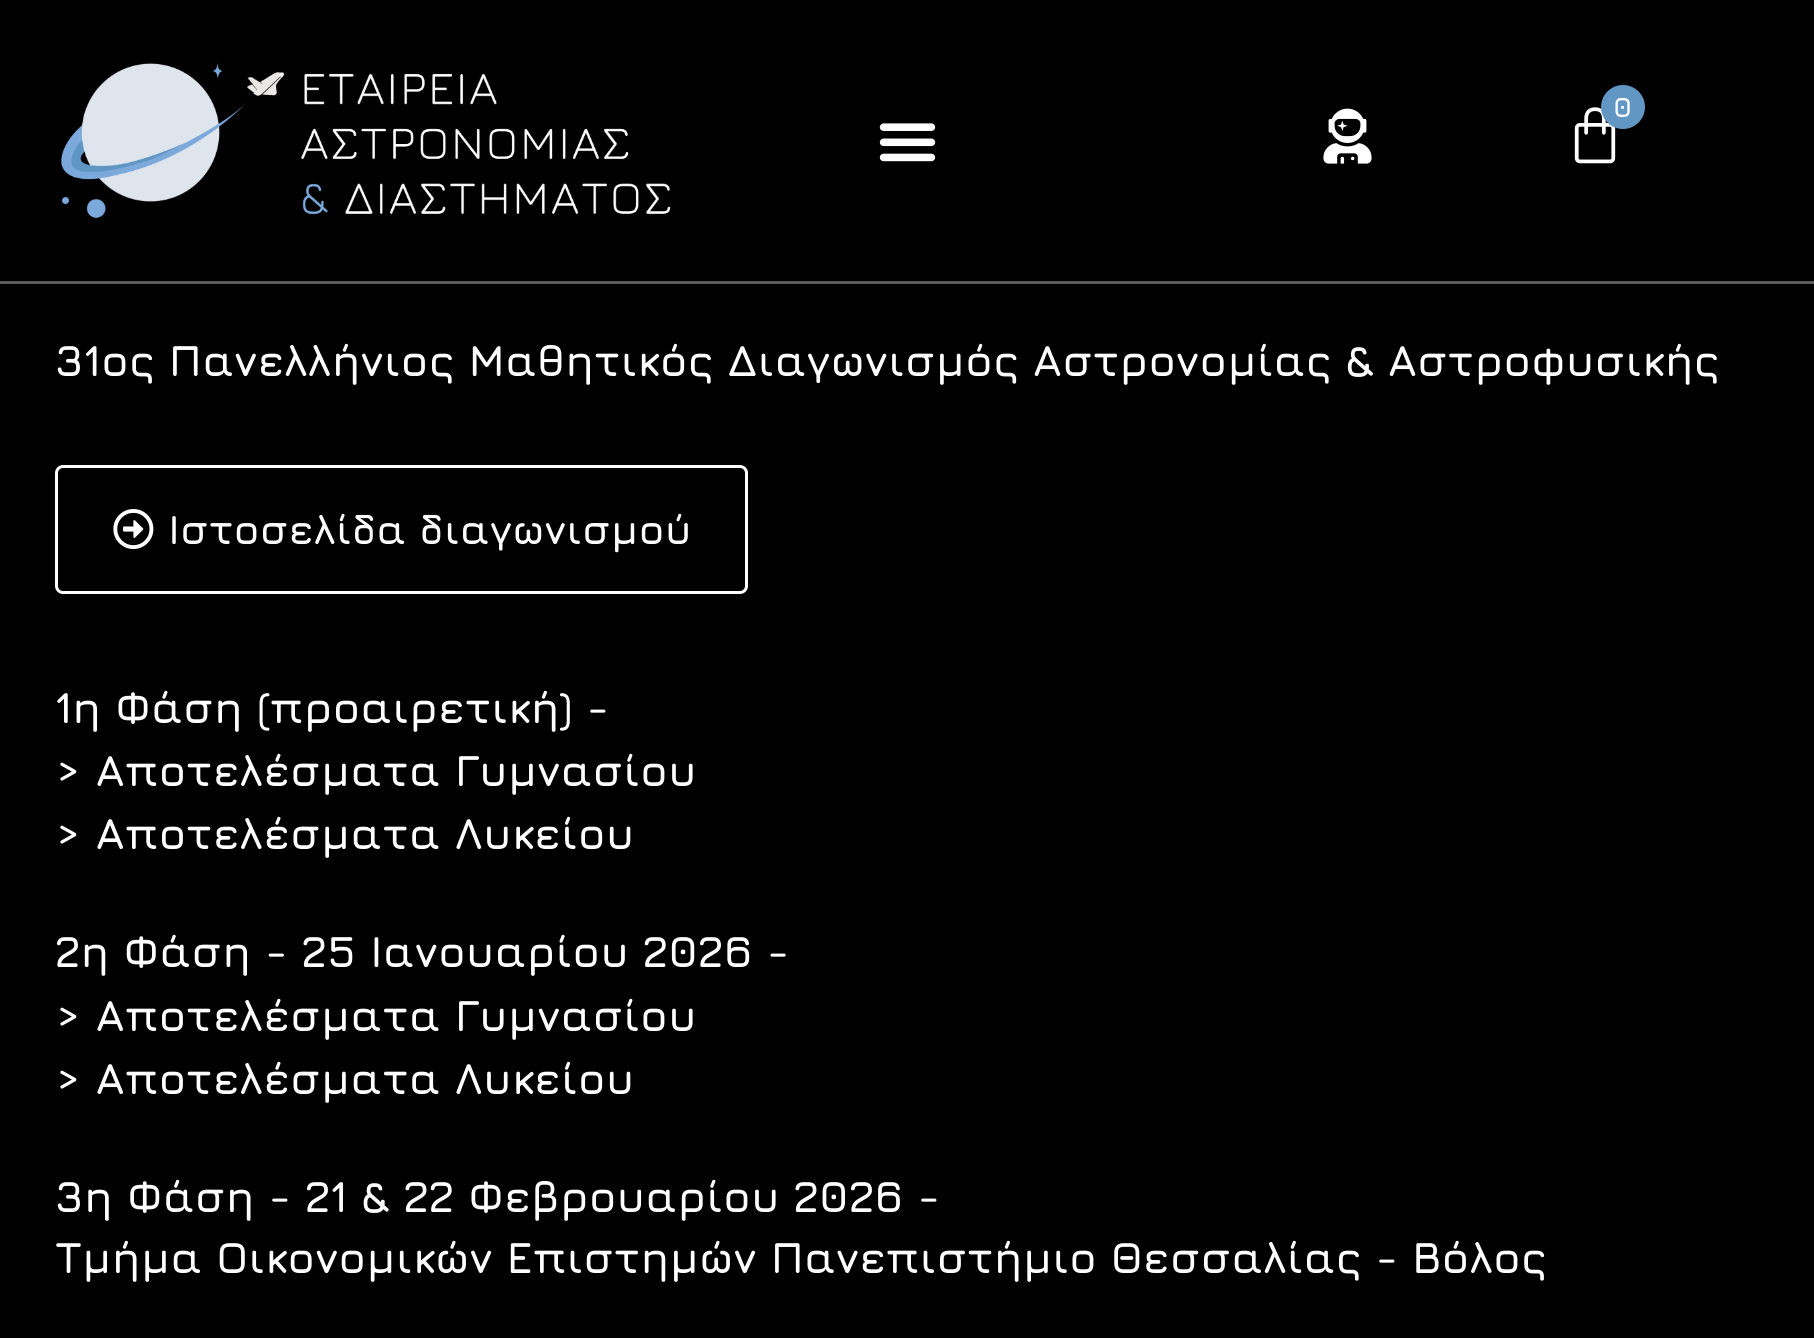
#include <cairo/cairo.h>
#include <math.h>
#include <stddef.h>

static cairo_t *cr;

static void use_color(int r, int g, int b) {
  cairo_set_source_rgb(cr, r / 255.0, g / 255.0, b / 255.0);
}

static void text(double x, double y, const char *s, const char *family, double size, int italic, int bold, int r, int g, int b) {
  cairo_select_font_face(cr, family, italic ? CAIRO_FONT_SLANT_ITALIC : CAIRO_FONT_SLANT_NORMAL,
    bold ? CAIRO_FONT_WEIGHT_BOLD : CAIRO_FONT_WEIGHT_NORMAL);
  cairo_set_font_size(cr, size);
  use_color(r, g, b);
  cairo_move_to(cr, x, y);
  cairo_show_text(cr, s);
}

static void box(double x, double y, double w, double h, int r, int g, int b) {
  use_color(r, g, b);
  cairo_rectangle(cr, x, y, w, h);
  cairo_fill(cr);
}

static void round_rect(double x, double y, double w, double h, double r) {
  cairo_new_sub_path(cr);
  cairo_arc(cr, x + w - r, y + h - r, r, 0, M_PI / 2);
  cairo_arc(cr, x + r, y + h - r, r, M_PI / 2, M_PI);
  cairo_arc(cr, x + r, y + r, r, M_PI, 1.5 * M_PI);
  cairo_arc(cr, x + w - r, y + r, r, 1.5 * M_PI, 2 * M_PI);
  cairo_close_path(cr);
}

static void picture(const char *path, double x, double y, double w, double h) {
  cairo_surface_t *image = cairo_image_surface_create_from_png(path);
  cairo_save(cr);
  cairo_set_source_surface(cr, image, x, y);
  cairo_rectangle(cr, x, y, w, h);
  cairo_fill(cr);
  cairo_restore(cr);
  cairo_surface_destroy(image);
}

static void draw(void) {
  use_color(0, 0, 0);
  cairo_paint(cr);
  box(0, 281, 1814, 3, 92, 92, 92);
  picture("img_01.png", 61, 63, 610, 156);
  picture("img_02.png", 1323, 108, 49, 56);
  picture("img_03.png", 1574, 107, 42, 57);
  use_color(98, 150, 195);
  cairo_arc(cr, 1623, 107, 22, 0, 2 * M_PI);
  cairo_fill(cr);
  picture("img_04.png", 879, 123, 57, 39);
  round_rect(56.5, 466.5, 690, 126, 6.5);
  use_color(255, 255, 255);
  cairo_set_line_width(cr, 3);
  cairo_stroke(cr);
  picture("img_05.png", 113, 509, 41, 40);
  text(1613, 117, "0", "Jura", 28, 0, 1, 255, 255, 255);
  text(55, 376, "31ος Πανελλήνιος Μαθητικός Διαγωνισμός Αστρονομίας & Αστροφυσικής", "Jura", 44, 0, 1, 255, 255, 255);
  text(168, 544, "Ιστοσελίδα διαγωνισμού", "Jura", 41.25, 0, 1, 255, 255, 255);
  text(55, 723, "1η Φάση (προαιρετική) -", "Jura", 44, 0, 1, 255, 255, 255);
  text(55, 786, "> Αποτελέσματα Γυμνασίου", "Jura", 44, 0, 1, 255, 255, 255);
  text(55, 849, "> Αποτελέσματα Λυκείου", "Jura", 44, 0, 1, 255, 255, 255);
  text(55, 967, "2η Φάση - 25 Ιανουαρίου 2026 -", "Jura", 44, 0, 1, 255, 255, 255);
  text(55, 1031, "> Αποτελέσματα Γυμνασίου", "Jura", 44, 0, 1, 255, 255, 255);
  text(55, 1094, "> Αποτελέσματα Λυκείου", "Jura", 44, 0, 1, 255, 255, 255);
  text(55, 1212, "3η Φάση - 21 & 22 Φεβρουαρίου 2026 -", "Jura", 44, 0, 1, 255, 255, 255);
  text(55, 1273, "Τμήμα Οικονομικών Επιστημών Πανεπιστήμιο Θεσσαλίας - Βόλος", "Jura", 44, 0, 1, 255, 255, 255);
}

int main(void) {
  cairo_surface_t *surface = cairo_image_surface_create(CAIRO_FORMAT_RGB24, 1814, 1338);
  cr = cairo_create(surface);
  cairo_font_options_t *options = cairo_font_options_create();
  cairo_font_options_set_hint_metrics(options, CAIRO_HINT_METRICS_OFF);
  cairo_font_options_set_hint_style(options, CAIRO_HINT_STYLE_NONE);
  cairo_set_font_options(cr, options);
  cairo_set_miter_limit(cr, 4);
  draw();
  cairo_surface_write_to_png(surface, "out.png");
  cairo_font_options_destroy(options);
  cairo_destroy(cr);
  cairo_surface_destroy(surface);
  return 0;
}
